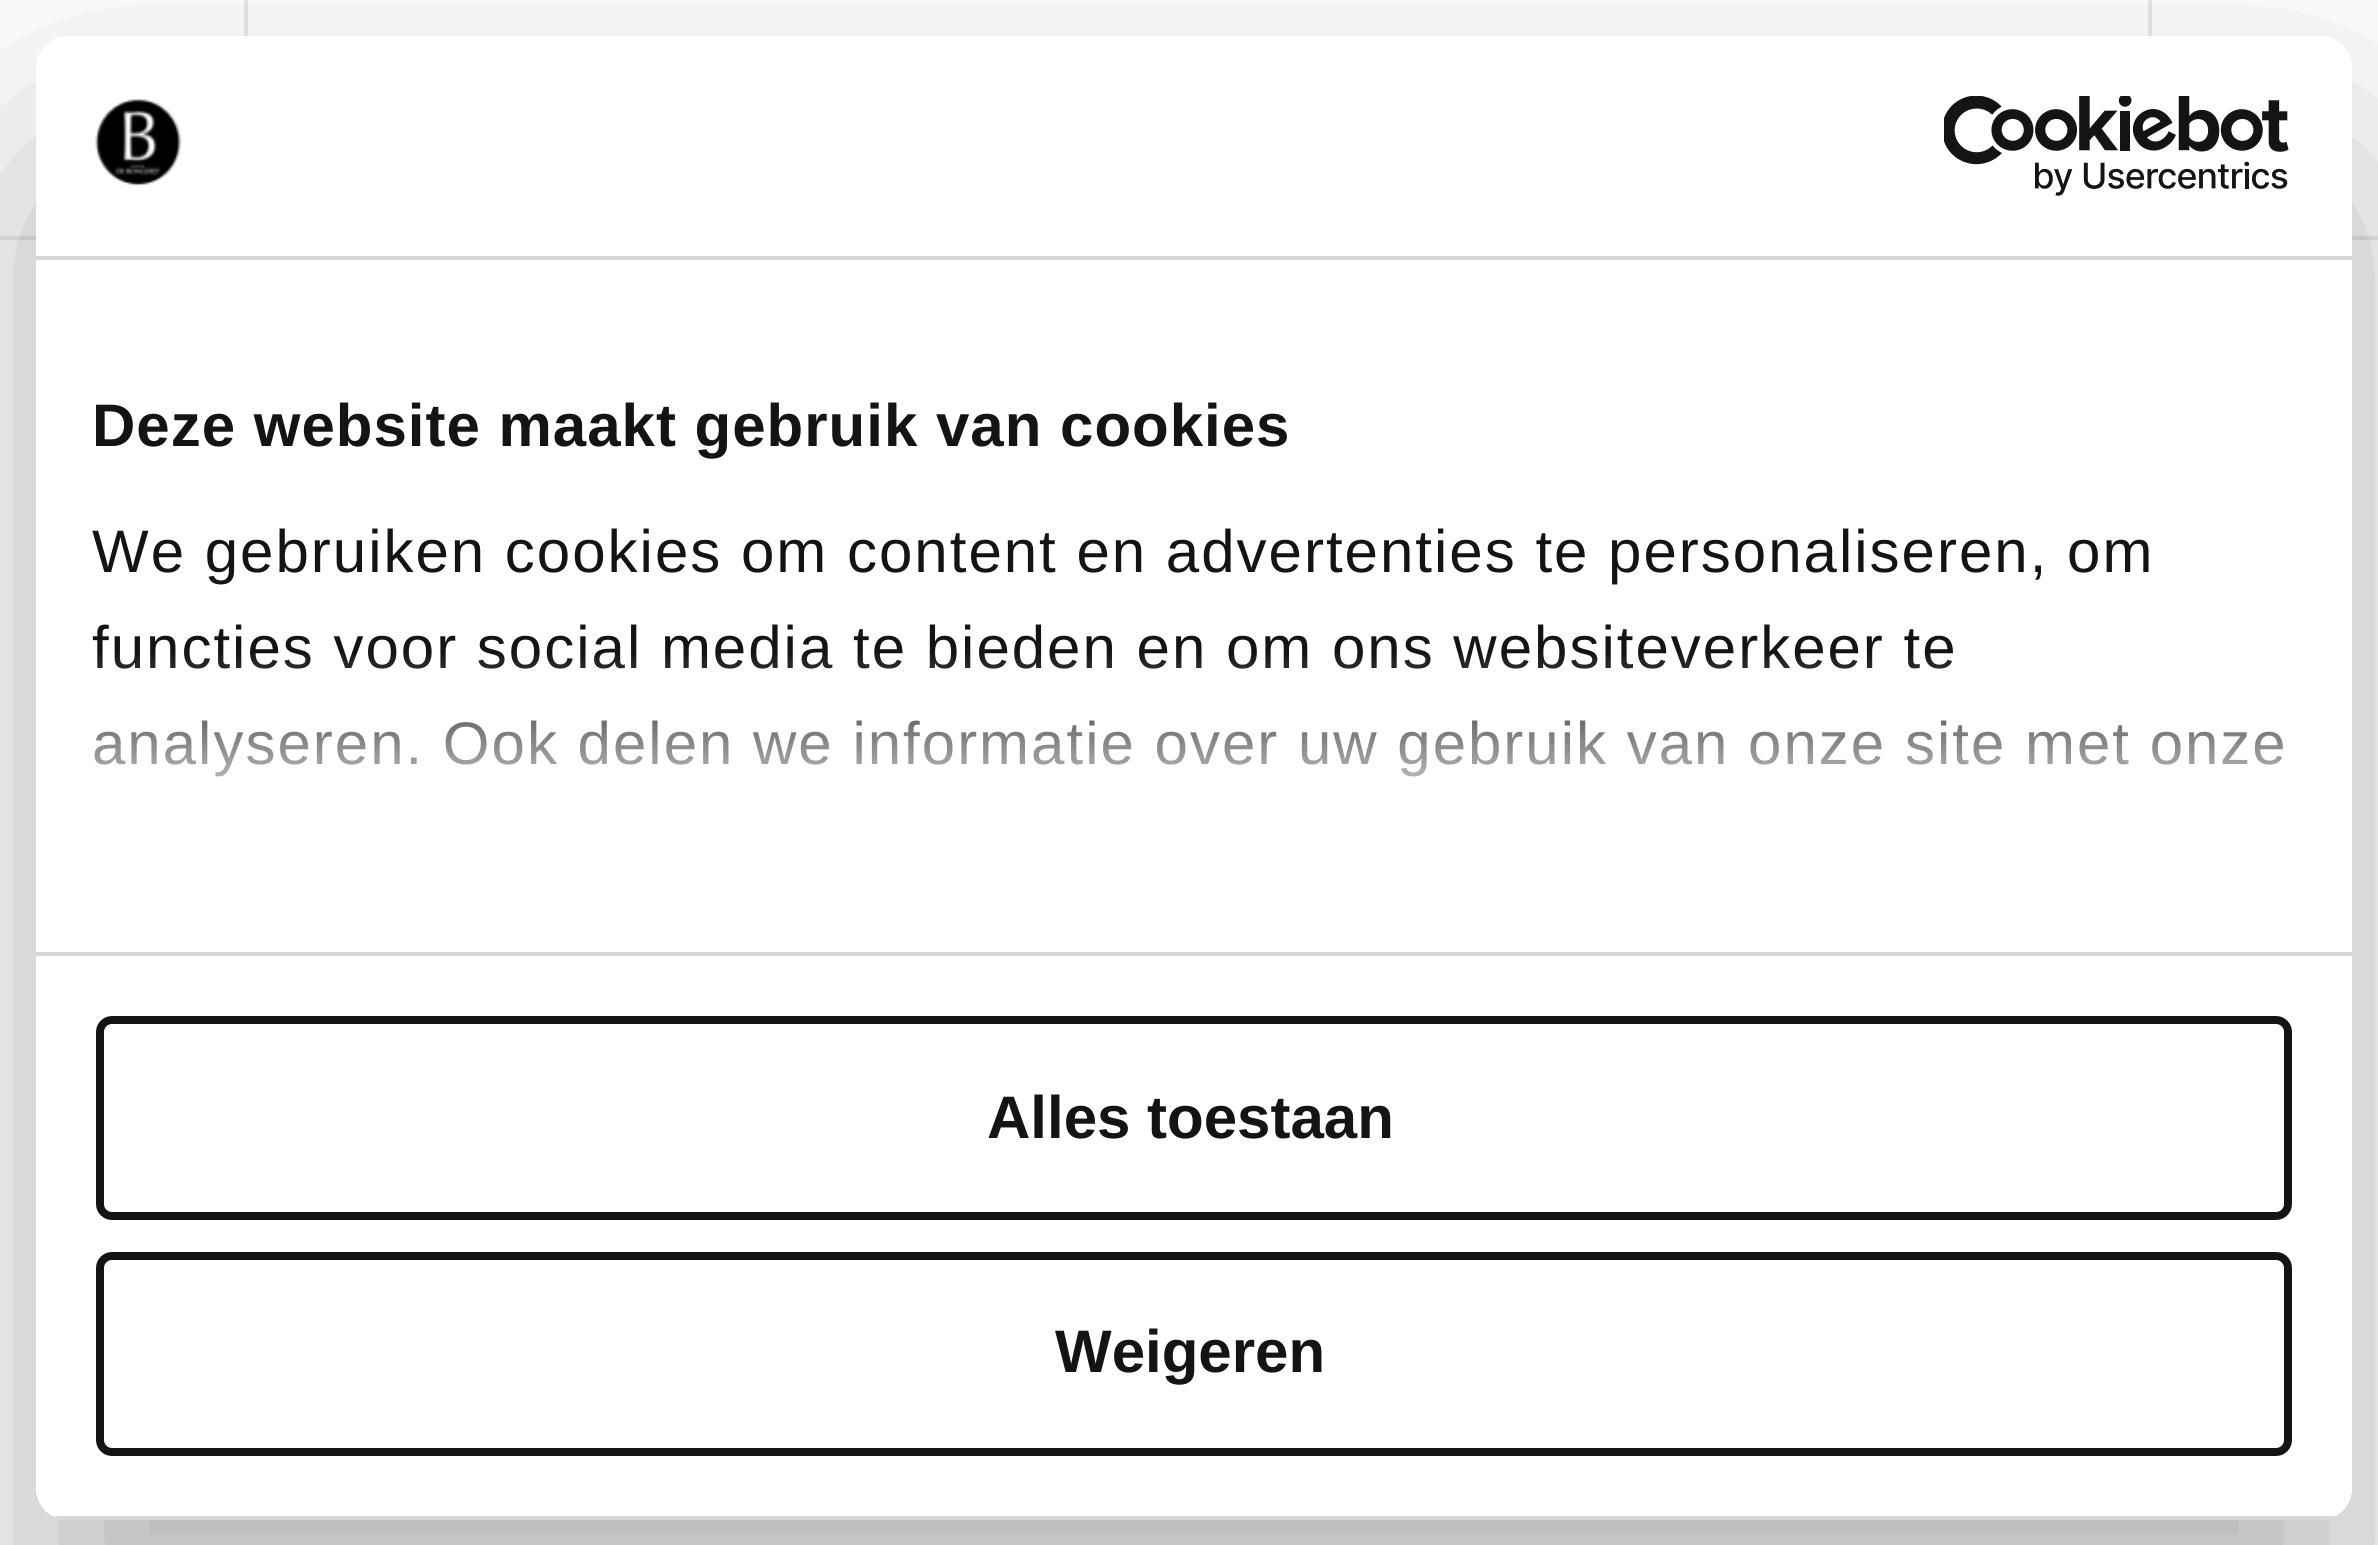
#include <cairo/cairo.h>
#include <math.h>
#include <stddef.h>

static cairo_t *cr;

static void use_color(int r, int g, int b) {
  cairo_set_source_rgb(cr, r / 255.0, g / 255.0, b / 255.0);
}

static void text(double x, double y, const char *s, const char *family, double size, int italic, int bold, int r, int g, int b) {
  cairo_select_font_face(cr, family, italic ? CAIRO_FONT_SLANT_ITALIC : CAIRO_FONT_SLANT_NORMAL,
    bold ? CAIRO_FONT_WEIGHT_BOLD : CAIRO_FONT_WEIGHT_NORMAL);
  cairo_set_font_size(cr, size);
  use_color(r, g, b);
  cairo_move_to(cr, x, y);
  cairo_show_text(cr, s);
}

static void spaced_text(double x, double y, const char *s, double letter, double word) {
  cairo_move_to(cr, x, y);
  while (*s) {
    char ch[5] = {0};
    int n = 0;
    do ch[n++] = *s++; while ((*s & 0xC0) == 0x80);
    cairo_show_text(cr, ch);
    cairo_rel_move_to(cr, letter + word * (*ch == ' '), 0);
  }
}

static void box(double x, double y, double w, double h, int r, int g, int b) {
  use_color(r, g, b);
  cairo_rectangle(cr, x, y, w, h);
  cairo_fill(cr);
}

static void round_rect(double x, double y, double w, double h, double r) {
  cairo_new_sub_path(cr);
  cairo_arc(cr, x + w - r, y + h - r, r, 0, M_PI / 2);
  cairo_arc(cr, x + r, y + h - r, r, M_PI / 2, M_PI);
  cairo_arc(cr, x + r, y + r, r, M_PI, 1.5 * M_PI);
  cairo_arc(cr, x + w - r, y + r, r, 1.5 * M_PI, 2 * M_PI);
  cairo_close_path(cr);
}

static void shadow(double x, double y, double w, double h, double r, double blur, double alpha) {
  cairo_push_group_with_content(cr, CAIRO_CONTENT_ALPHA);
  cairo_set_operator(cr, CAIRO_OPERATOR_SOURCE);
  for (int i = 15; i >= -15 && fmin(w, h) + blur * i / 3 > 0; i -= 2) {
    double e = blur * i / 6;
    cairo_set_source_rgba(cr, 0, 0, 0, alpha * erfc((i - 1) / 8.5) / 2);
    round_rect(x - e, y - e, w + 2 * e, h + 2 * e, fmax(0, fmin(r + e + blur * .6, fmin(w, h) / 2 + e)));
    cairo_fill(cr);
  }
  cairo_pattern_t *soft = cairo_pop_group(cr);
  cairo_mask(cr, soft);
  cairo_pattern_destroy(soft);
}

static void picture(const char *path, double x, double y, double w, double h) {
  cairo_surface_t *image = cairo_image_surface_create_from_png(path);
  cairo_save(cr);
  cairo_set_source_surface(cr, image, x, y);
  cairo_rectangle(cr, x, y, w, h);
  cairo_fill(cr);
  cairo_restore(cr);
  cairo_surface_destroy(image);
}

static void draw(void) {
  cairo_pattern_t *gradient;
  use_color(255, 255, 255);
  cairo_paint(cr);
  box(0, 236, 2378, 4, 236, 232, 229);
  box(244, 0, 4, 36, 236, 232, 229);
  box(2148, 0, 4, 36, 236, 232, 229);
  cairo_save(cr);
  cairo_set_fill_rule(cr, CAIRO_FILL_RULE_EVEN_ODD);
  cairo_new_path(cr);
  cairo_move_to(cr, 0, 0);
  cairo_line_to(cr, 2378, 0);
  cairo_line_to(cr, 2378, 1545);
  cairo_line_to(cr, 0, 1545);
  cairo_close_path(cr);
  cairo_move_to(cr, 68, 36);
  cairo_line_to(cr, 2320, 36);
  cairo_curve_to(cr, 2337.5, 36, 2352, 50.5, 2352, 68);
  cairo_line_to(cr, 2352, 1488);
  cairo_curve_to(cr, 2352, 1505.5, 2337.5, 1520, 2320, 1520);
  cairo_line_to(cr, 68, 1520);
  cairo_curve_to(cr, 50.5, 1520, 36, 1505.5, 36, 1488);
  cairo_line_to(cr, 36, 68);
  cairo_curve_to(cr, 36, 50.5, 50.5, 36, 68, 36);
  cairo_close_path(cr);
  cairo_clip(cr);
  use_color(0, 0, 0);
  shadow(36, 164, 2316, 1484, 32, 136, 0.3);
  cairo_restore(cr);
  use_color(255, 255, 255);
  round_rect(36, 36, 2316, 1484, 32);
  cairo_fill(cr);
  box(36, 256, 2316, 4, 214, 214, 214);
  picture("img_01.png", 95, 98, 87, 89);
  picture("img_02.png", 1944, 96, 345, 100);
  box(36, 952, 2316, 4, 214, 214, 214);
  cairo_save(cr);
  round_rect(36, 36, 2316, 1484, 32);
  cairo_clip(cr);
  box(52, 1516, 2284, 4, 214, 214, 214);
  cairo_restore(cr);
  round_rect(100, 1020, 2188, 196, 12);
  use_color(20, 20, 20);
  cairo_set_line_width(cr, 8);
  cairo_stroke(cr);
  round_rect(100, 1256, 2188, 196, 12);
  cairo_stroke(cr);
  cairo_select_font_face(cr, "Liberation Sans", CAIRO_FONT_SLANT_NORMAL, CAIRO_FONT_WEIGHT_BOLD);
  cairo_set_font_size(cr, 60);
  spaced_text(92, 446, "Deze website maakt gebruik van cookies", 1, 0);
  cairo_select_font_face(cr, "Liberation Sans", CAIRO_FONT_SLANT_NORMAL, CAIRO_FONT_WEIGHT_NORMAL);
  spaced_text(92, 572, "We gebruiken cookies om content en advertenties te personaliseren, om", 2, 0);
  spaced_text(92, 668, "functies voor social media te bieden en om ons websiteverkeer te", 2, 0);
  spaced_text(92, 764, "analyseren. Ook delen we informatie over uw gebruik van onze site met onze", 2, 0);
  gradient = cairo_pattern_create_linear(1166, 950, 1166, 650);
  cairo_pattern_add_color_stop_rgba(gradient, 0, 1, 1, 1, 1);
  cairo_pattern_add_color_stop_rgba(gradient, 0.5, 1, 1, 1, 0.8);
  cairo_pattern_add_color_stop_rgba(gradient, 1, 1, 1, 1, 0);
  cairo_set_source(cr, gradient);
  cairo_pattern_destroy(gradient);
  cairo_rectangle(cr, 94, 654, 2190, 123);
  cairo_fill(cr);
  text(987, 1138, "Alles toestaan", "Liberation Sans", 60, 0, 1, 20, 20, 20);
  text(1055, 1372, "Weigeren", "Liberation Sans", 60, 0, 1, 20, 20, 20);
}

int main(void) {
  cairo_surface_t *surface = cairo_image_surface_create(CAIRO_FORMAT_RGB24, 2378, 1545);
  cr = cairo_create(surface);
  cairo_font_options_t *options = cairo_font_options_create();
  cairo_font_options_set_hint_metrics(options, CAIRO_HINT_METRICS_OFF);
  cairo_font_options_set_hint_style(options, CAIRO_HINT_STYLE_NONE);
  cairo_set_font_options(cr, options);
  cairo_set_miter_limit(cr, 4);
  draw();
  cairo_surface_write_to_png(surface, "out.png");
  cairo_font_options_destroy(options);
  cairo_destroy(cr);
  cairo_surface_destroy(surface);
  return 0;
}
